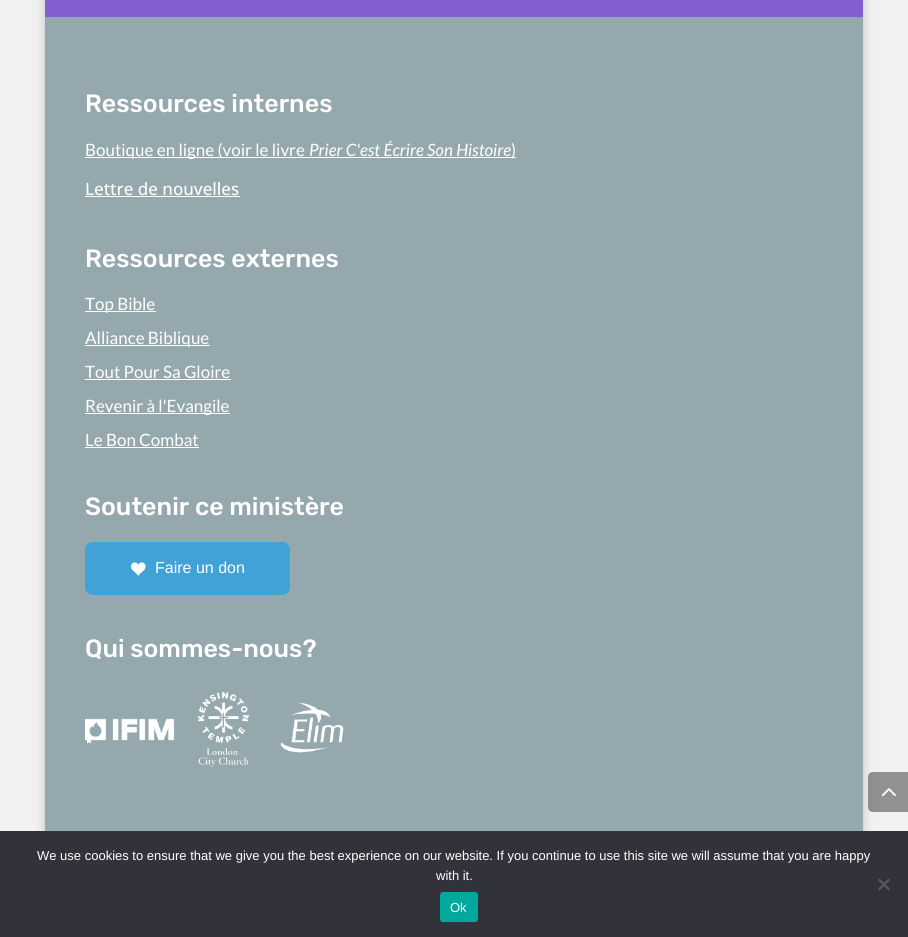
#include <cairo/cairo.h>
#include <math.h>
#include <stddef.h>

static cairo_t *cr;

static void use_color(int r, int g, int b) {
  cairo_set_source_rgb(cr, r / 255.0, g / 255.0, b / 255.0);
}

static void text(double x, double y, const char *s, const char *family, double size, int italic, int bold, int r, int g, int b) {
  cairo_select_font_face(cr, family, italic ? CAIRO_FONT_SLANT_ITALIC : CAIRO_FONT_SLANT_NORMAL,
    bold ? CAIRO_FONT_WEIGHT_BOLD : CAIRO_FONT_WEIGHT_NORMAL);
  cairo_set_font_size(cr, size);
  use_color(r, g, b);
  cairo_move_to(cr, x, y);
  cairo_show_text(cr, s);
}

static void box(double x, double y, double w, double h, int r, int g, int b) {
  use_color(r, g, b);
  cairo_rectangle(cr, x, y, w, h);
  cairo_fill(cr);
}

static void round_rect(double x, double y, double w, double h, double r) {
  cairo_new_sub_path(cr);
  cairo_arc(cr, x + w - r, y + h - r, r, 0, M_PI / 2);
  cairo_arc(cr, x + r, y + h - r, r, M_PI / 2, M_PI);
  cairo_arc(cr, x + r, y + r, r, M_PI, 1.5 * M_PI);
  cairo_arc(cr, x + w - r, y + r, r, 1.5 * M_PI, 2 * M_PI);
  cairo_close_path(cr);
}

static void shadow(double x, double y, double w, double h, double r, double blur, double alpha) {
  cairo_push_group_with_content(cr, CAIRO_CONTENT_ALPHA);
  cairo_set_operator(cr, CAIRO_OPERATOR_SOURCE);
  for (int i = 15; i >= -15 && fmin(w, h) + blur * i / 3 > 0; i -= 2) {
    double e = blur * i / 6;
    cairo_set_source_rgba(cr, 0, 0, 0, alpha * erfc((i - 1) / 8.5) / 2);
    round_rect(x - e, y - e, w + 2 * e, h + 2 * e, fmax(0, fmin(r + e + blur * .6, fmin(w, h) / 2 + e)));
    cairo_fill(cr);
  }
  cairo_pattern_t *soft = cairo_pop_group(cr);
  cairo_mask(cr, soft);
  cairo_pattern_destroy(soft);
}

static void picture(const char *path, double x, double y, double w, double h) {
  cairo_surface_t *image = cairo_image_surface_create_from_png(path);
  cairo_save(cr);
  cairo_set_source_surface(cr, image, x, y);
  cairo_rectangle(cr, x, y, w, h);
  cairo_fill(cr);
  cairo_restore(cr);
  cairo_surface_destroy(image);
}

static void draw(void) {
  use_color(241, 241, 241);
  cairo_paint(cr);
  use_color(0, 0, 0);
  shadow(45, -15, 818, 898, 0, 5, 0.2);
  box(45, 0, 818, 17, 130, 95, 206);
  box(45, 17, 818, 814, 148, 168, 174);
  box(85, 157, 431, 1, 255, 255, 255);
  box(85, 196, 155, 1, 255, 255, 255);
  box(85, 311, 71, 1, 255, 255, 255);
  box(85, 345, 125, 1, 255, 255, 255);
  box(85, 379, 146, 1, 255, 255, 255);
  box(85, 413, 145, 1, 255, 255, 255);
  box(85, 447, 114, 1, 255, 255, 255);
  use_color(65, 162, 216);
  round_rect(85, 542, 205, 53, 8);
  cairo_fill(cr);
  picture("img_01.png", 130, 562, 16, 14);
  picture("img_02.png", 85, 718, 90, 26);
  picture("img_03.png", 197, 692, 53, 75);
  picture("img_04.png", 280, 702, 64, 51);
  cairo_set_source_rgba(cr, 0, 0, 0, 0.4);
  cairo_new_path(cr);
  cairo_move_to(cr, 873, 772);
  cairo_line_to(cr, 908, 772);
  cairo_line_to(cr, 908, 812);
  cairo_line_to(cr, 873, 812);
  cairo_curve_to(cr, 870, 812, 868, 810, 868, 807);
  cairo_line_to(cr, 868, 777);
  cairo_curve_to(cr, 868, 774, 870, 772, 873, 772);
  cairo_close_path(cr);
  cairo_fill(cr);
  picture("img_05.png", 882, 788, 14, 8);
  box(0, 831, 908, 106, 50, 50, 58);
  use_color(89, 89, 93);
  cairo_new_path(cr);
  cairo_move_to(cr, 888.5, 878.5);
  cairo_line_to(cr, 890, 880);
  cairo_line_to(cr, 879.5, 890.5);
  cairo_line_to(cr, 878, 889);
  cairo_close_path(cr);
  cairo_fill(cr);
  cairo_new_path(cr);
  cairo_move_to(cr, 878, 880);
  cairo_line_to(cr, 879.5, 878.5);
  cairo_line_to(cr, 890, 889);
  cairo_line_to(cr, 888.5, 890.5);
  cairo_close_path(cr);
  cairo_fill(cr);
  use_color(0, 169, 157);
  round_rect(440, 892, 38, 30, 3);
  cairo_fill(cr);
  text(85, 112, "Ressources internes", "Rubik Medium", 25, 0, 0, 255, 255, 255);
  text(85, 156, "Boutique en ligne (voir le livre", "Lato", 17, 0, 0, 255, 255, 255);
  text(309, 156, "Prier C'est Écrire Son Histoire", "Lato", 17, 1, 0, 255, 255, 255);
  text(511, 156, ")", "Lato", 17, 0, 0, 255, 255, 255);
  text(85, 195, "Lettre de nouvelles", "Open Sans Medium", 17, 0, 0, 255, 255, 255);
  text(85, 267, "Ressources externes", "Rubik Medium", 25, 0, 0, 255, 255, 255);
  text(85, 310, "Top Bible", "Lato", 17, 0, 0, 255, 255, 255);
  text(85, 344, "Alliance Biblique", "Lato", 17, 0, 0, 255, 255, 255);
  text(85, 378, "Tout Pour Sa Gloire", "Lato", 17, 0, 0, 255, 255, 255);
  text(85, 412, "Revenir à l'Evangile", "Lato", 17, 0, 0, 255, 255, 255);
  text(85, 446, "Le Bon Combat", "Lato", 17, 0, 0, 255, 255, 255);
  text(85, 515, "Soutenir ce ministère", "Rubik Medium", 25, 0, 0, 255, 255, 255);
  text(155, 573, "Faire un don", "Liberation Sans", 16, 0, 0, 255, 255, 255);
  text(85, 657, "Qui sommes-nous?", "Rubik Medium", 25, 0, 0, 255, 255, 255);
  text(37, 860, "We use cookies to ensure that we give you the best experience on our website. If you continue to use this site we will assume that you are happy", "Liberation Sans", 13, 0, 0, 255, 255, 255);
  text(436, 880, "with it.", "Liberation Sans", 13, 0, 0, 255, 255, 255);
  text(450, 912, "Ok", "Liberation Sans", 13, 0, 0, 255, 255, 255);
}

int main(void) {
  cairo_surface_t *surface = cairo_image_surface_create(CAIRO_FORMAT_RGB24, 908, 937);
  cr = cairo_create(surface);
  cairo_font_options_t *options = cairo_font_options_create();
  cairo_font_options_set_hint_metrics(options, CAIRO_HINT_METRICS_OFF);
  cairo_font_options_set_hint_style(options, CAIRO_HINT_STYLE_NONE);
  cairo_set_font_options(cr, options);
  cairo_set_miter_limit(cr, 4);
  draw();
  cairo_surface_write_to_png(surface, "out.png");
  cairo_font_options_destroy(options);
  cairo_destroy(cr);
  cairo_surface_destroy(surface);
  return 0;
}
